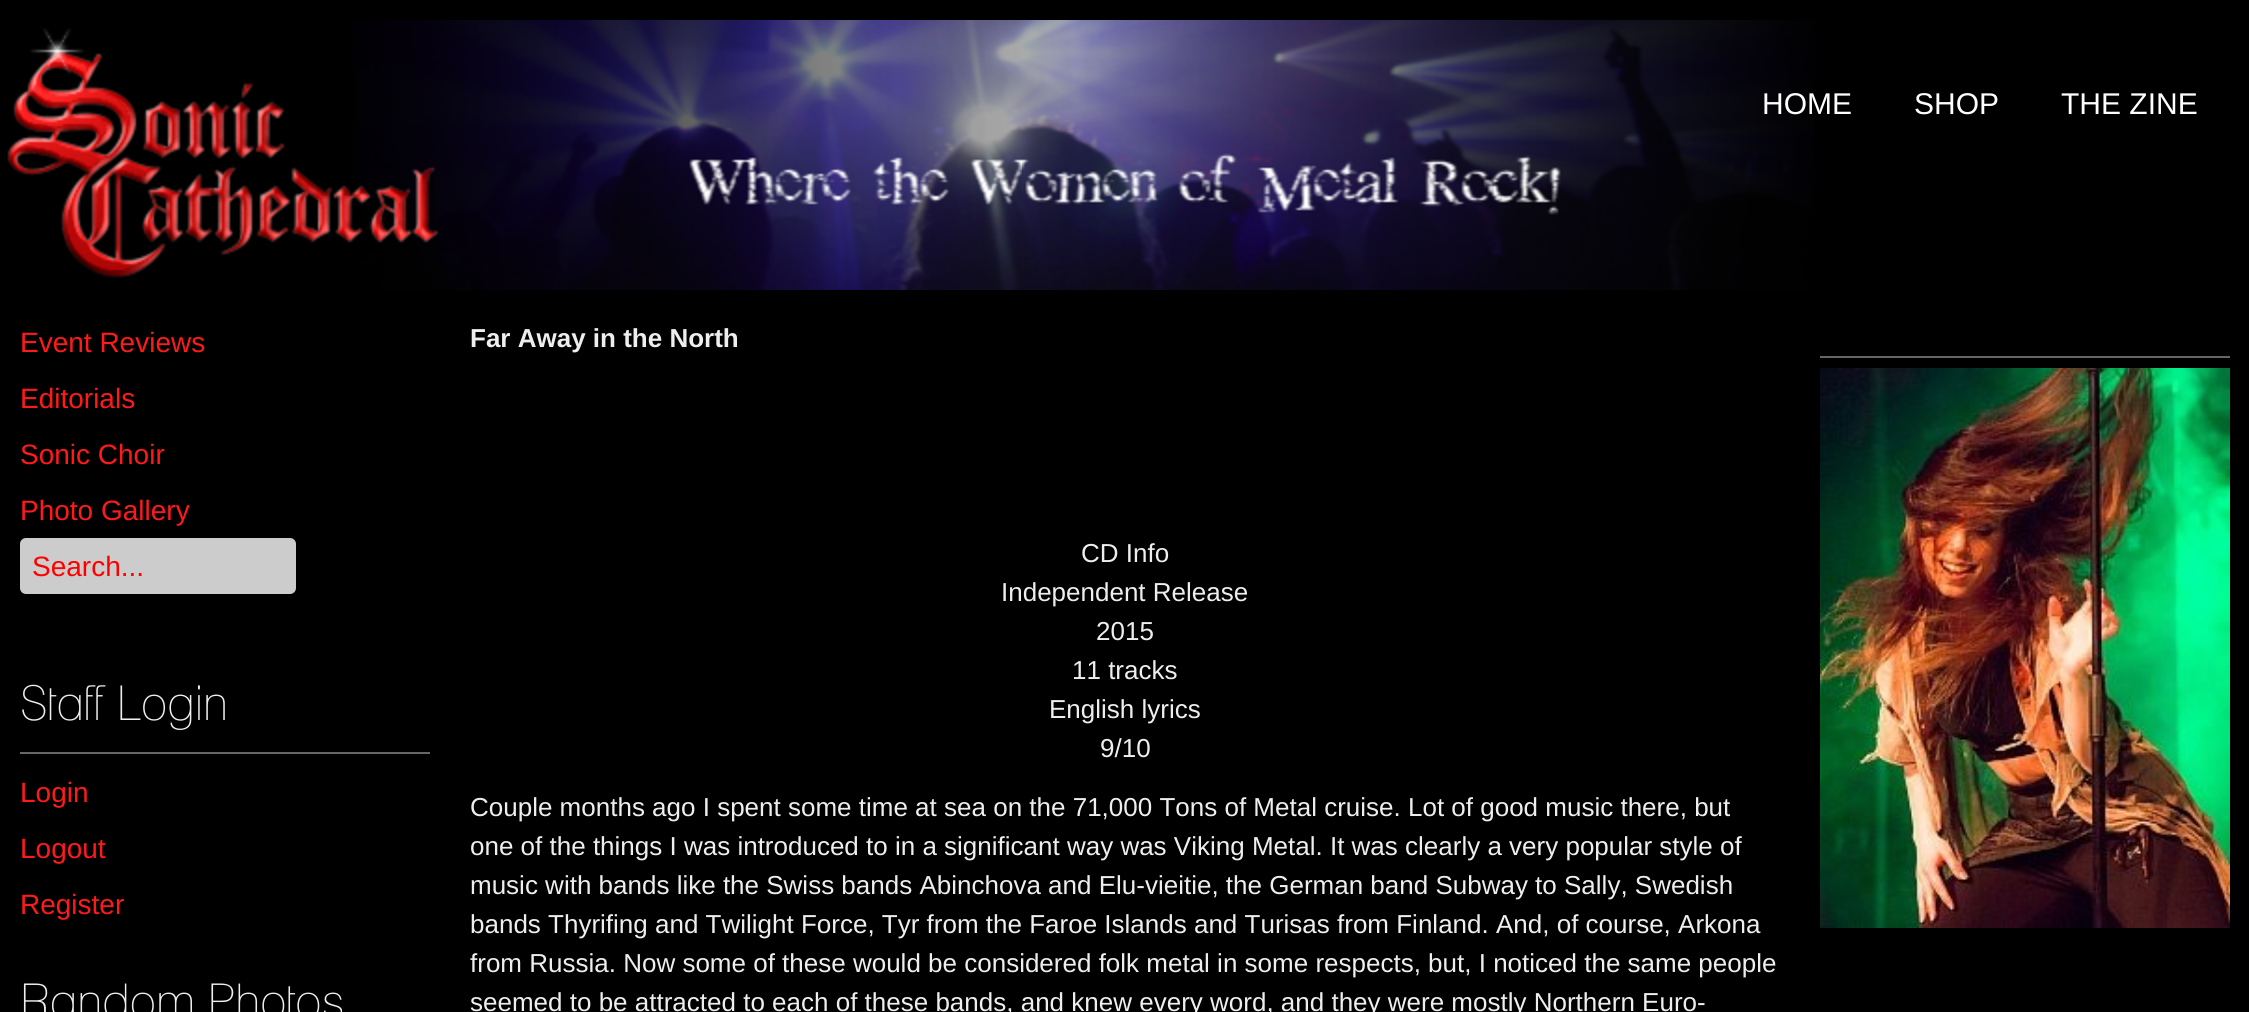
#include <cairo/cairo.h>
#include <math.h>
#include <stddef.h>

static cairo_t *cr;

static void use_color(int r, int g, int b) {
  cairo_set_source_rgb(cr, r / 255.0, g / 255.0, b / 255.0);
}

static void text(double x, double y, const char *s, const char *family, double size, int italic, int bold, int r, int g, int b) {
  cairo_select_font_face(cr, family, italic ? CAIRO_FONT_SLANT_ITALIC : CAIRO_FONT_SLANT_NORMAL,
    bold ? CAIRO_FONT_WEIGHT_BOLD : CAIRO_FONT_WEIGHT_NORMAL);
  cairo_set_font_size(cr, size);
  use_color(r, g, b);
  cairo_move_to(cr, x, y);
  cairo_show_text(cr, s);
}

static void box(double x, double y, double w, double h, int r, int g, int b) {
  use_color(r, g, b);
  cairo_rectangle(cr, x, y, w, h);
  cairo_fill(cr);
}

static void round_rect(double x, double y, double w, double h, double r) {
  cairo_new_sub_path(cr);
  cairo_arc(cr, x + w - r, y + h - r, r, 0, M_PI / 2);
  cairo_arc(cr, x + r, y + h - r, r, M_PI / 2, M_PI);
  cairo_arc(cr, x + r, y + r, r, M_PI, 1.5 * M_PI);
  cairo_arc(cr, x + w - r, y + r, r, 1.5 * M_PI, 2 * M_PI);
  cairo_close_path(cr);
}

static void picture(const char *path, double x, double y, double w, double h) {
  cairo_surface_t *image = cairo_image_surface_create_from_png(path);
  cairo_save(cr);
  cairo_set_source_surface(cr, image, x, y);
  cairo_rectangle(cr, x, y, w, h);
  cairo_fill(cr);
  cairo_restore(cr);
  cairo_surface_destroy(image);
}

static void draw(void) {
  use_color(0, 0, 0);
  cairo_paint(cr);
  picture("img_01.png", 353, 20, 1462, 270);
  picture("img_02.png", 7, 28, 432, 250);
  use_color(204, 204, 204);
  round_rect(21, 539, 274, 54, 5);
  cairo_fill_preserve(cr);
  cairo_stroke(cr);
  box(20, 752, 410, 2, 102, 102, 102);
  box(1820, 356, 410, 2, 102, 102, 102);
  picture("img_03.png", 1820, 368, 410, 560);
  text(1762, 114, "HOME", "Liberation Sans", 30, 0, 0, 255, 255, 255);
  text(1914, 114, "SHOP", "Liberation Sans", 30, 0, 0, 255, 255, 255);
  text(2061, 114, "THE ZINE", "Liberation Sans", 30, 0, 0, 255, 255, 255);
  text(20, 352, "Event Reviews", "Liberation Sans", 28, 0, 0, 255, 26, 26);
  text(20, 408, "Editorials", "Liberation Sans", 28, 0, 0, 255, 26, 26);
  text(20, 464, "Sonic Choir", "Liberation Sans", 28, 0, 0, 255, 26, 26);
  text(20, 520, "Photo Gallery", "Liberation Sans", 28, 0, 0, 255, 26, 26);
  text(32, 576, "Search...", "Liberation Sans", 28, 0, 0, 255, 0, 0);
  text(20, 720, "Staff Login", "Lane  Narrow", 48, 0, 0, 238, 238, 238);
  text(20, 802, "Login", "Liberation Sans", 28, 0, 0, 255, 26, 26);
  text(20, 858, "Logout", "Liberation Sans", 28, 0, 0, 255, 26, 26);
  text(20, 914, "Register", "Liberation Sans", 28, 0, 0, 255, 26, 26);
  text(20, 1018, "Random Photos", "Lane  Narrow", 48, 0, 0, 238, 238, 238);
  text(470, 347, "Far Away in the North", "Liberation Sans", 26, 0, 1, 238, 238, 238);
  text(1081, 562, "CD Info", "Liberation Sans", 26, 0, 0, 238, 238, 238);
  text(1001, 601, "Independent Release", "Liberation Sans", 26, 0, 0, 238, 238, 238);
  text(1096, 640, "2015", "Liberation Sans", 26, 0, 0, 238, 238, 238);
  text(1072, 679, "11 tracks", "Liberation Sans", 26, 0, 0, 238, 238, 238);
  text(1049, 718, "English lyrics", "Liberation Sans", 26, 0, 0, 238, 238, 238);
  text(1100, 757, "9/10", "Liberation Sans", 26, 0, 0, 238, 238, 238);
  text(470, 816, "Couple months ago I spent some time at sea on the 71,000 Tons of Metal cruise. Lot of good music there, but", "Liberation Sans", 26, 0, 0, 238, 238, 238);
  text(470, 855, "one of the things I was introduced to in a significant way was Viking Metal. It was clearly a very popular style of", "Liberation Sans", 26, 0, 0, 238, 238, 238);
  text(470, 894, "music with bands like the Swiss bands Abinchova and Elu-vieitie, the German band Subway to Sally, Swedish", "Liberation Sans", 26, 0, 0, 238, 238, 238);
  text(470, 933, "bands Thyrifing and Twilight Force, Tyr from the Faroe Islands and Turisas from Finland. And, of course, Arkona", "Liberation Sans", 26, 0, 0, 238, 238, 238);
  text(470, 972, "from Russia. Now some of these would be considered folk metal in some respects, but, I noticed the same people", "Liberation Sans", 26, 0, 0, 238, 238, 238);
  text(470, 1011, "seemed to be attracted to each of these bands, and knew every word, and they were mostly Northern Euro-", "Liberation Sans", 26, 0, 0, 238, 238, 238);
}

int main(void) {
  cairo_surface_t *surface = cairo_image_surface_create(CAIRO_FORMAT_RGB24, 2249, 1012);
  cr = cairo_create(surface);
  cairo_font_options_t *options = cairo_font_options_create();
  cairo_font_options_set_hint_metrics(options, CAIRO_HINT_METRICS_OFF);
  cairo_font_options_set_hint_style(options, CAIRO_HINT_STYLE_NONE);
  cairo_set_font_options(cr, options);
  cairo_set_miter_limit(cr, 4);
  draw();
  cairo_surface_write_to_png(surface, "out.png");
  cairo_font_options_destroy(options);
  cairo_destroy(cr);
  cairo_surface_destroy(surface);
  return 0;
}
